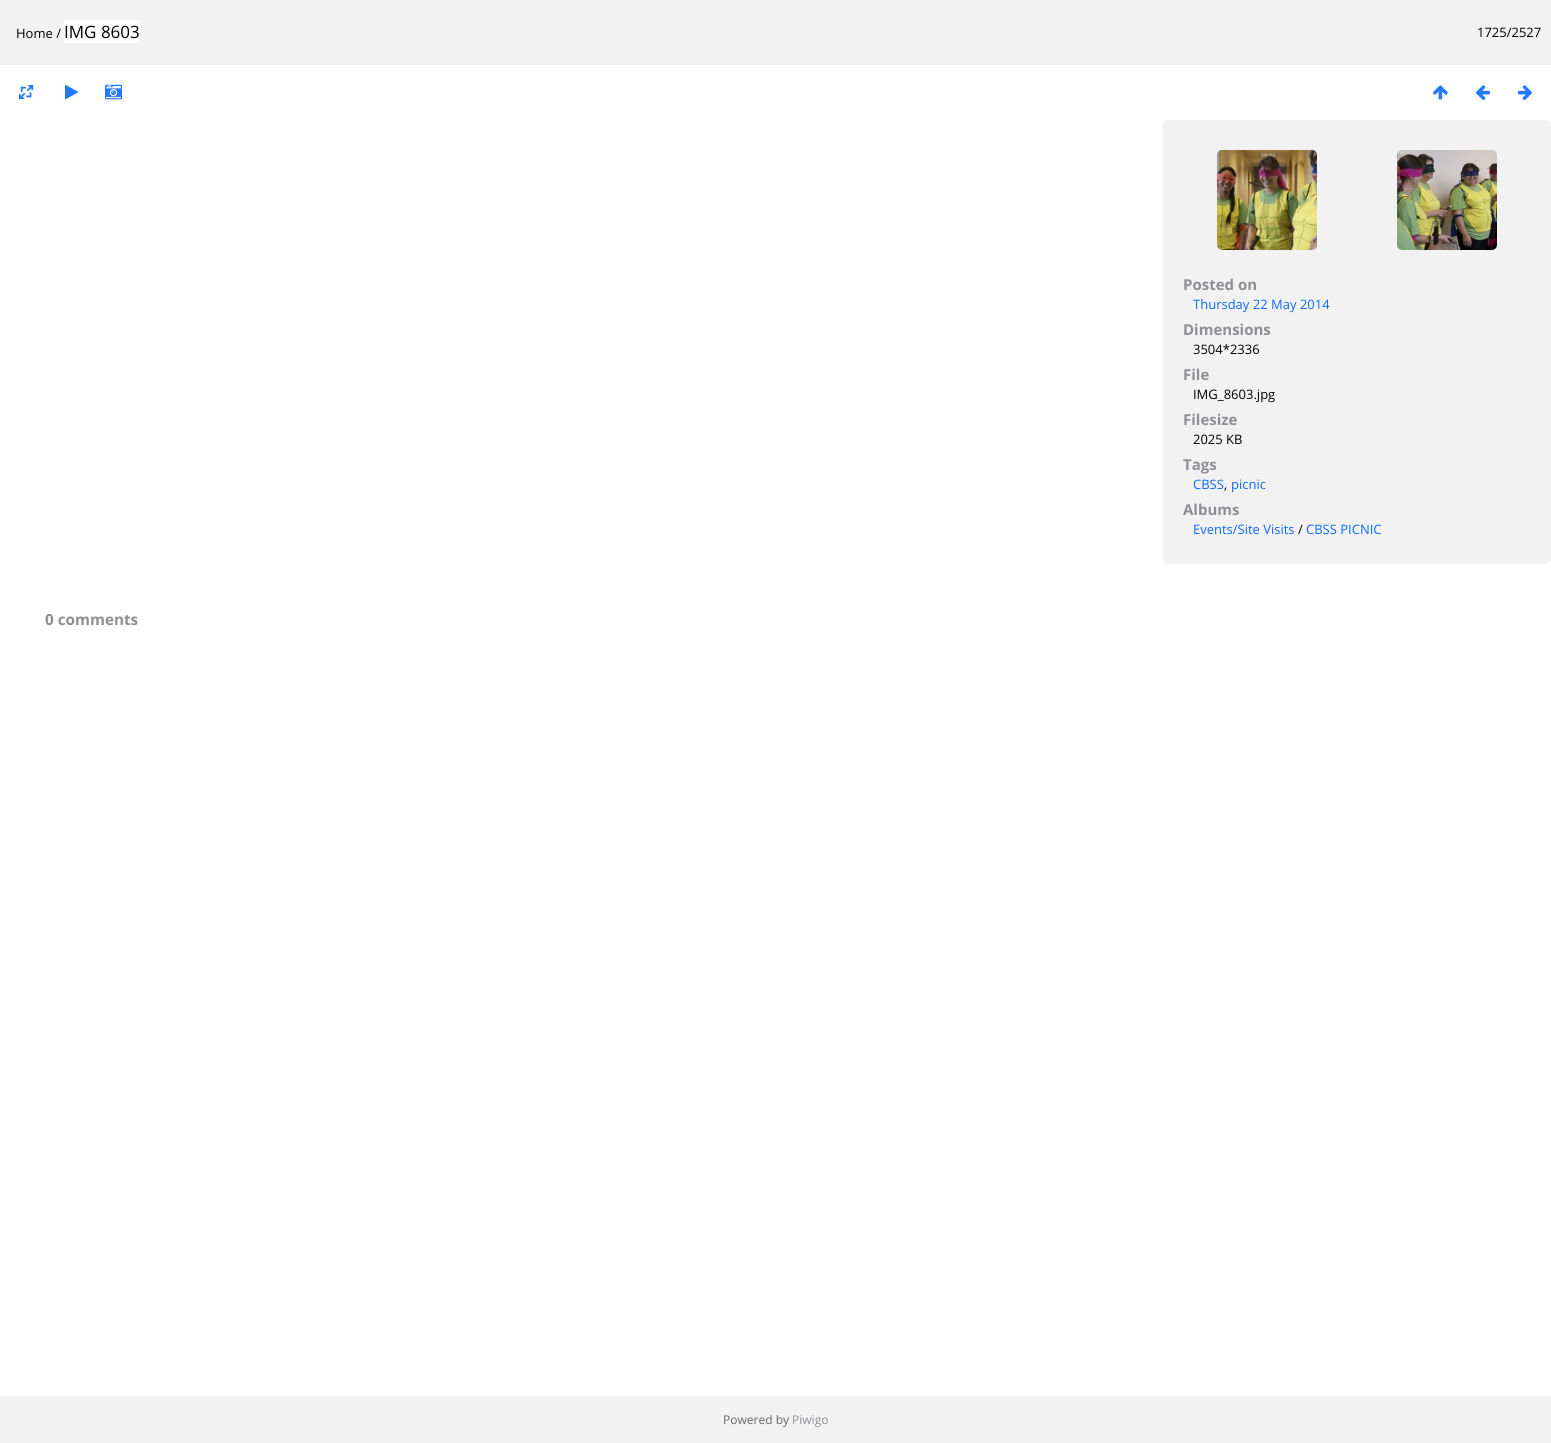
#include <cairo/cairo.h>
#include <math.h>
#include <stddef.h>

static cairo_t *cr;

static void use_color(int r, int g, int b) {
  cairo_set_source_rgb(cr, r / 255.0, g / 255.0, b / 255.0);
}

static void text(double x, double y, const char *s, const char *family, double size, int italic, int bold, int r, int g, int b) {
  cairo_select_font_face(cr, family, italic ? CAIRO_FONT_SLANT_ITALIC : CAIRO_FONT_SLANT_NORMAL,
    bold ? CAIRO_FONT_WEIGHT_BOLD : CAIRO_FONT_WEIGHT_NORMAL);
  cairo_set_font_size(cr, size);
  use_color(r, g, b);
  cairo_move_to(cr, x, y);
  cairo_show_text(cr, s);
}

static void box(double x, double y, double w, double h, int r, int g, int b) {
  use_color(r, g, b);
  cairo_rectangle(cr, x, y, w, h);
  cairo_fill(cr);
}

static void round_rect(double x, double y, double w, double h, double r) {
  cairo_new_sub_path(cr);
  cairo_arc(cr, x + w - r, y + h - r, r, 0, M_PI / 2);
  cairo_arc(cr, x + r, y + h - r, r, M_PI / 2, M_PI);
  cairo_arc(cr, x + r, y + r, r, M_PI, 1.5 * M_PI);
  cairo_arc(cr, x + w - r, y + r, r, 1.5 * M_PI, 2 * M_PI);
  cairo_close_path(cr);
}

static void picture(const char *path, double x, double y, double w, double h) {
  cairo_surface_t *image = cairo_image_surface_create_from_png(path);
  cairo_save(cr);
  cairo_set_source_surface(cr, image, x, y);
  cairo_rectangle(cr, x, y, w, h);
  cairo_fill(cr);
  cairo_restore(cr);
  cairo_surface_destroy(image);
}

static void draw(void) {
  use_color(255, 255, 255);
  cairo_paint(cr);
  box(0, 0, 1551, 65, 242, 242, 242);
  box(64, 20, 76, 23, 255, 255, 255);
  picture("img_01.png", 19, 84, 15, 16);
  picture("img_02.png", 105, 84, 17, 16);
  use_color(242, 242, 242);
  round_rect(1163, 120, 388, 444, 5);
  cairo_fill(cr);
  picture("img_03.png", 1217, 150, 100, 100);
  picture("img_04.png", 1397, 150, 100, 100);
  box(0, 1396, 1551, 47, 242, 242, 242);
  text(16, 38, "Home /", "Open Sans", 13, 0, 0, 0, 0, 0);
  text(64, 38, "IMG 8603", "Open Sans", 17, 0, 0, 0, 0, 0);
  text(1477, 37, "1725/2527", "Open Sans", 13, 0, 0, 0, 0, 0);
  text(65, 98, "▶", "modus", 17, 0, 0, 35, 121, 255);
  text(1433, 98, "↑", "modus", 17, 0, 0, 35, 121, 255);
  text(1476, 98, "←", "modus", 17, 0, 0, 35, 121, 255);
  text(1518, 98, "→", "modus", 17, 0, 0, 35, 121, 255);
  text(1183, 290, "Posted on", "Open Sans", 15, 0, 1, 142, 142, 147);
  text(1193, 309, "Thursday 22 May 2014", "Open Sans", 13, 0, 0, 11, 106, 255);
  text(1183, 335, "Dimensions", "Open Sans", 15, 0, 1, 142, 142, 147);
  text(1193, 354, "3504*2336", "Open Sans", 13, 0, 0, 0, 0, 0);
  text(1183, 380, "File", "Open Sans", 15, 0, 1, 142, 142, 147);
  text(1193, 399, "IMG_8603.jpg", "Open Sans", 13, 0, 0, 0, 0, 0);
  text(1183, 425, "Filesize", "Open Sans", 15, 0, 1, 142, 142, 147);
  text(1193, 444, "2025 KB", "Open Sans", 13, 0, 0, 0, 0, 0);
  text(1183, 470, "Tags", "Open Sans", 15, 0, 1, 142, 142, 147);
  text(1193, 489, "CBSS", "Open Sans", 13, 0, 0, 11, 106, 255);
  text(1224, 489, ",", "Open Sans", 13, 0, 0, 0, 0, 0);
  text(1231, 489, "picnic", "Open Sans", 13, 0, 0, 11, 106, 255);
  text(1183, 515, "Albums", "Open Sans", 15, 0, 1, 142, 142, 147);
  text(1193, 534, "Events/Site Visits", "Open Sans", 13, 0, 0, 11, 106, 255);
  text(1298, 534, "/", "Open Sans", 13, 0, 0, 0, 0, 0);
  text(1306, 534, "CBSS PICNIC", "Open Sans", 13, 0, 0, 11, 106, 255);
  text(45, 625, "0 comments", "Open Sans", 15.25, 0, 1, 142, 142, 147);
  text(723, 1424, "Powered by", "Open Sans", 12, 0, 0, 102, 102, 102);
  text(792, 1424, "Piwigo", "Open Sans", 12, 0, 0, 142, 142, 147);
}

int main(void) {
  cairo_surface_t *surface = cairo_image_surface_create(CAIRO_FORMAT_RGB24, 1551, 1443);
  cr = cairo_create(surface);
  cairo_font_options_t *options = cairo_font_options_create();
  cairo_font_options_set_hint_metrics(options, CAIRO_HINT_METRICS_OFF);
  cairo_font_options_set_hint_style(options, CAIRO_HINT_STYLE_NONE);
  cairo_set_font_options(cr, options);
  cairo_set_miter_limit(cr, 4);
  draw();
  cairo_surface_write_to_png(surface, "out.png");
  cairo_font_options_destroy(options);
  cairo_destroy(cr);
  cairo_surface_destroy(surface);
  return 0;
}
